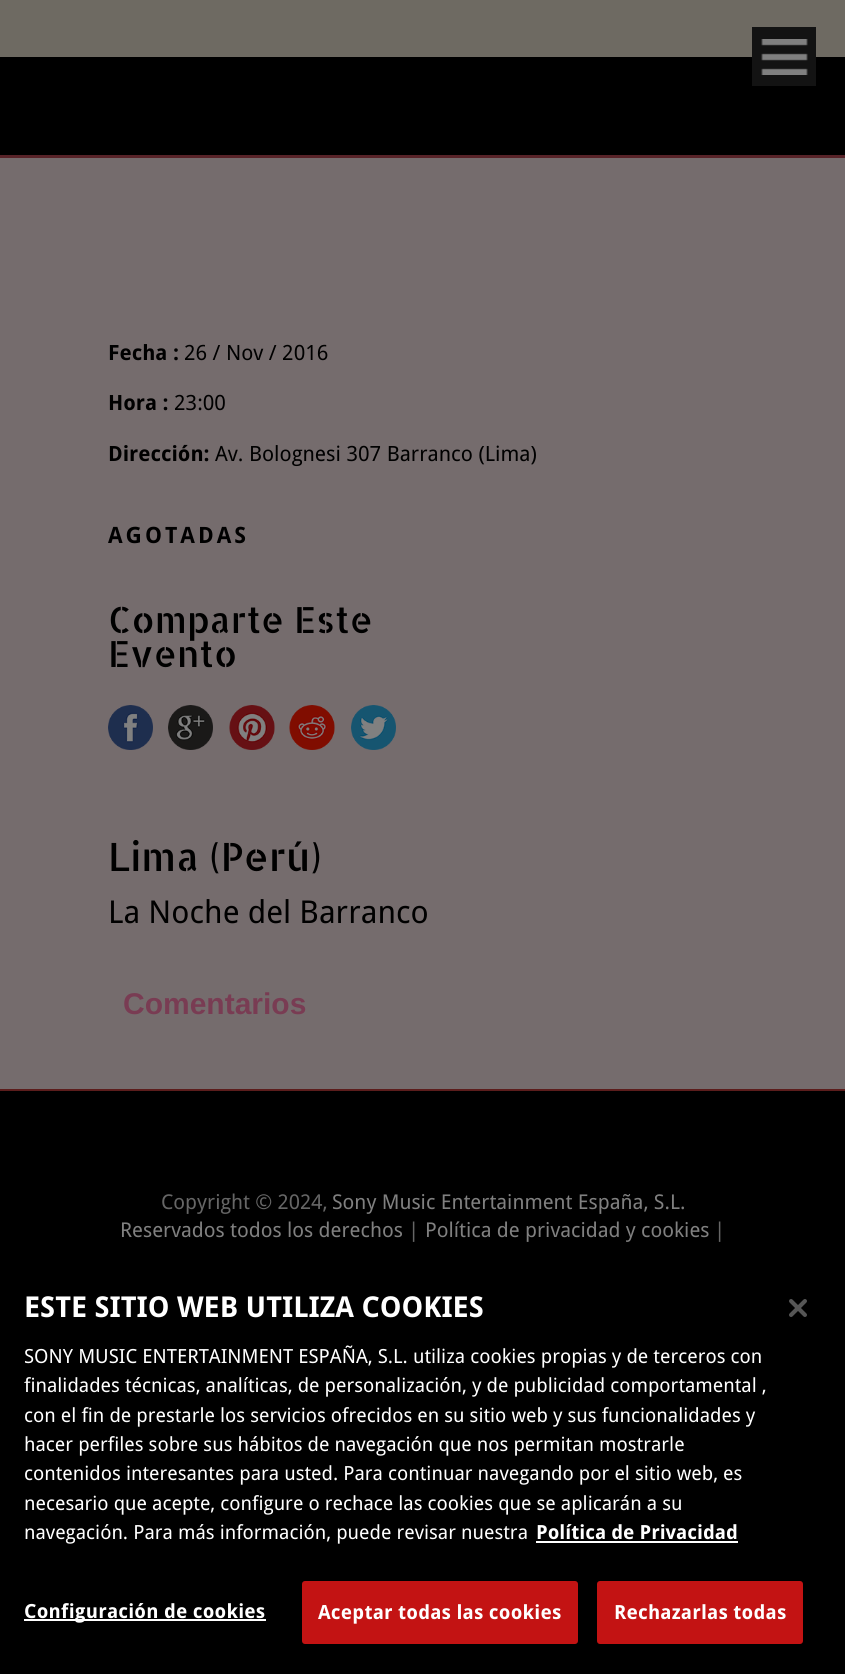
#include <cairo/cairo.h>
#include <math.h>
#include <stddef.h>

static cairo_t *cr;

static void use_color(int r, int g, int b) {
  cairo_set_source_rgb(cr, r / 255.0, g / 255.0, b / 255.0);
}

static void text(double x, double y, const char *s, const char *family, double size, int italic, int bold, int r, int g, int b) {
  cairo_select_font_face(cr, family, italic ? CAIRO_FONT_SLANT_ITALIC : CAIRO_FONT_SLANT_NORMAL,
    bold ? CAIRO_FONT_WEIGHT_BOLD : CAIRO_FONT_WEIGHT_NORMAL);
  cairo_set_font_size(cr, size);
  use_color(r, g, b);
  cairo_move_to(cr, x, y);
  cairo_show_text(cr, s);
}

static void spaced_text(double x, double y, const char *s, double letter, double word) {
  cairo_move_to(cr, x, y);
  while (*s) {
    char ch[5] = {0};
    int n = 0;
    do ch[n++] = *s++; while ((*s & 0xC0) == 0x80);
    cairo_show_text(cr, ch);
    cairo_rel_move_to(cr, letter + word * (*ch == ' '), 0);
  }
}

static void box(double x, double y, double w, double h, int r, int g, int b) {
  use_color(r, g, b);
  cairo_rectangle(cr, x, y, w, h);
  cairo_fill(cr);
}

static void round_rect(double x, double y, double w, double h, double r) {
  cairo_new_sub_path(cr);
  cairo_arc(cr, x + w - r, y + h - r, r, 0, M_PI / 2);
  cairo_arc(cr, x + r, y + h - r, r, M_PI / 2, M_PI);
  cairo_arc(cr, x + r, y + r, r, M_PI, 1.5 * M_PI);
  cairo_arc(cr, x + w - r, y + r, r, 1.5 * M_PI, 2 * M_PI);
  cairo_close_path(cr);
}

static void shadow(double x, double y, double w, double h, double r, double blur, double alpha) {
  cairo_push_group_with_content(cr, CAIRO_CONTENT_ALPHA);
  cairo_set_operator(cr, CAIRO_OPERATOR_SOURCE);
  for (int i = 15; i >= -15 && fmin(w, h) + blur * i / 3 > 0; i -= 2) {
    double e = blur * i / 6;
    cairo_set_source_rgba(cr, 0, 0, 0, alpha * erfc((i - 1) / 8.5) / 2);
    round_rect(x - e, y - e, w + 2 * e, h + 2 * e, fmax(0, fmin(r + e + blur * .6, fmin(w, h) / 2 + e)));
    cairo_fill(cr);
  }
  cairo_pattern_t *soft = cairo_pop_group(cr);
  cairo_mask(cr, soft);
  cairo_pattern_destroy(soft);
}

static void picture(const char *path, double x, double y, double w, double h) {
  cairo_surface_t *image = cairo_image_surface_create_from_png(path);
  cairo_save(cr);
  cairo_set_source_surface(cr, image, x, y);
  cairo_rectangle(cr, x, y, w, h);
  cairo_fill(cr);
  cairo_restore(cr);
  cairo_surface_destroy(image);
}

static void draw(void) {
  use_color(110, 106, 98);
  cairo_paint(cr);
  box(0, 57, 845, 98, 0, 0, 0);
  box(752, 27, 64, 59, 19, 19, 19);
  picture("img_01.png", 761, 39, 47, 36);
  box(0, 155, 845, 3, 88, 35, 40);
  box(0, 158, 845, 931, 117, 108, 109);
  picture("img_02.png", 108, 705, 45, 45);
  picture("img_03.png", 168, 705, 45, 45);
  picture("img_04.png", 229, 705, 46, 45);
  picture("img_05.png", 289, 705, 46, 45);
  picture("img_06.png", 351, 705, 45, 45);
  box(0, 1091, 845, 169, 0, 0, 0);
  box(0, 1089, 845, 2, 92, 29, 28);
  use_color(0, 0, 0);
  shadow(0, 1260, 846, 414, 0, 13.5, 0.2);
  box(0, 1260, 845, 414, 0, 0, 0);
  box(536, 1541, 202, 2, 255, 255, 255);
  box(24, 1619, 242, 2, 255, 255, 255);
  use_color(195, 19, 19);
  round_rect(303, 1582, 274, 61, 2);
  cairo_fill_preserve(cr);
  cairo_stroke(cr);
  round_rect(598, 1582, 204, 61, 2);
  cairo_fill_preserve(cr);
  cairo_stroke(cr);
  picture("img_07.png", 789, 1299, 18, 18);
  text(108, 360, "Fecha :", "Droid Sans", 21, 0, 1, 0, 0, 0);
  text(184, 360, "26 / Nov / 2016", "Droid Sans", 21, 0, 0, 0, 0, 0);
  text(108, 410, "Hora :", "Droid Sans", 21, 0, 1, 0, 0, 0);
  text(174, 410, "23:00", "Droid Sans", 21, 0, 0, 0, 0, 0);
  text(108, 461, "Dirección:", "Droid Sans", 21, 0, 1, 0, 0, 0);
  text(215, 461, "Av. Bolognesi 307 Barranco (Lima)", "Droid Sans", 21, 0, 0, 0, 0, 0);
  cairo_select_font_face(cr, "Droid Sans", CAIRO_FONT_SLANT_NORMAL, CAIRO_FONT_WEIGHT_BOLD);
  cairo_set_font_size(cr, 22.5);
  spaced_text(108, 543, "AGOTADAS", 3, 0);
  text(108, 633, "Comparte Este", "Allerta Stencil", 36, 0, 0, 0, 0, 0);
  text(108, 667, "Evento", "Allerta Stencil", 36, 0, 0, 0, 0, 0);
  text(108, 871, "Lima (Perú)", "Allerta Stencil", 39, 0, 0, 0, 0, 0);
  text(108, 923, "La Noche del Barranco", "Droid Sans", 31.5, 0, 0, 0, 0, 0);
  text(123, 1014, "Comentarios", "Liberation Sans", 30, 0, 1, 121, 60, 83);
  text(161, 1209, "Copyright © 2024,", "Droid Sans", 20.4, 0, 0, 102, 102, 102);
  text(332, 1209, "Sony Music Entertainment España, S.L.", "Droid Sans", 20.4, 0, 0, 128, 128, 128);
  text(120, 1237, "Reservados todos los derechos", "Droid Sans", 20.4, 0, 0, 128, 128, 128);
  text(408, 1237, "|", "Droid Sans", 20.4, 0, 0, 102, 102, 102);
  text(425, 1237, "Política de privacidad y cookies", "Droid Sans", 20.4, 0, 0, 128, 128, 128);
  text(714, 1237, "|", "Droid Sans", 20.4, 0, 0, 102, 102, 102);
  text(24, 1317, "ESTE SITIO WEB UTILIZA COOKIES", "Droid Sans", 28.75, 0, 1, 255, 255, 255);
  text(24, 1363, "SONY MUSIC ENTERTAINMENT ESPAÑA, S.L. utiliza cookies propias y de terceros con", "Droid Sans", 19.5, 0, 0, 255, 255, 255);
  text(24, 1392, "finalidades técnicas, analíticas, de personalización, y de publicidad comportamental ,", "Droid Sans", 19.5, 0, 0, 255, 255, 255);
  text(24, 1422, "con el fin de prestarle los servicios ofrecidos en su sitio web y sus funcionalidades y", "Droid Sans", 19.5, 0, 0, 255, 255, 255);
  text(24, 1451, "hacer perfiles sobre sus hábitos de navegación que nos permitan mostrarle", "Droid Sans", 19.5, 0, 0, 255, 255, 255);
  text(24, 1480, "contenidos interesantes para usted. Para continuar navegando por el sitio web, es", "Droid Sans", 19.5, 0, 0, 255, 255, 255);
  text(24, 1510, "necesario que acepte, configure o rechace las cookies que se aplicarán a su", "Droid Sans", 19.5, 0, 0, 255, 255, 255);
  text(24, 1539, "navegación. Para más información, puede revisar nuestra", "Droid Sans", 19.5, 0, 0, 255, 255, 255);
  text(536, 1539, "Política de Privacidad", "Droid Sans", 19.5, 0, 1, 255, 255, 255);
  spaced_text(24, 1618, "Configuración de cookies", 0.2, 0);
  spaced_text(318, 1619, "Aceptar todas las cookies", 0.2, 0);
  spaced_text(614, 1619, "Rechazarlas todas", 0.2, 0);
}

int main(void) {
  cairo_surface_t *surface = cairo_image_surface_create(CAIRO_FORMAT_RGB24, 845, 1674);
  cr = cairo_create(surface);
  cairo_font_options_t *options = cairo_font_options_create();
  cairo_font_options_set_hint_metrics(options, CAIRO_HINT_METRICS_OFF);
  cairo_font_options_set_hint_style(options, CAIRO_HINT_STYLE_NONE);
  cairo_set_font_options(cr, options);
  cairo_set_miter_limit(cr, 4);
  draw();
  cairo_surface_write_to_png(surface, "out.png");
  cairo_font_options_destroy(options);
  cairo_destroy(cr);
  cairo_surface_destroy(surface);
  return 0;
}
